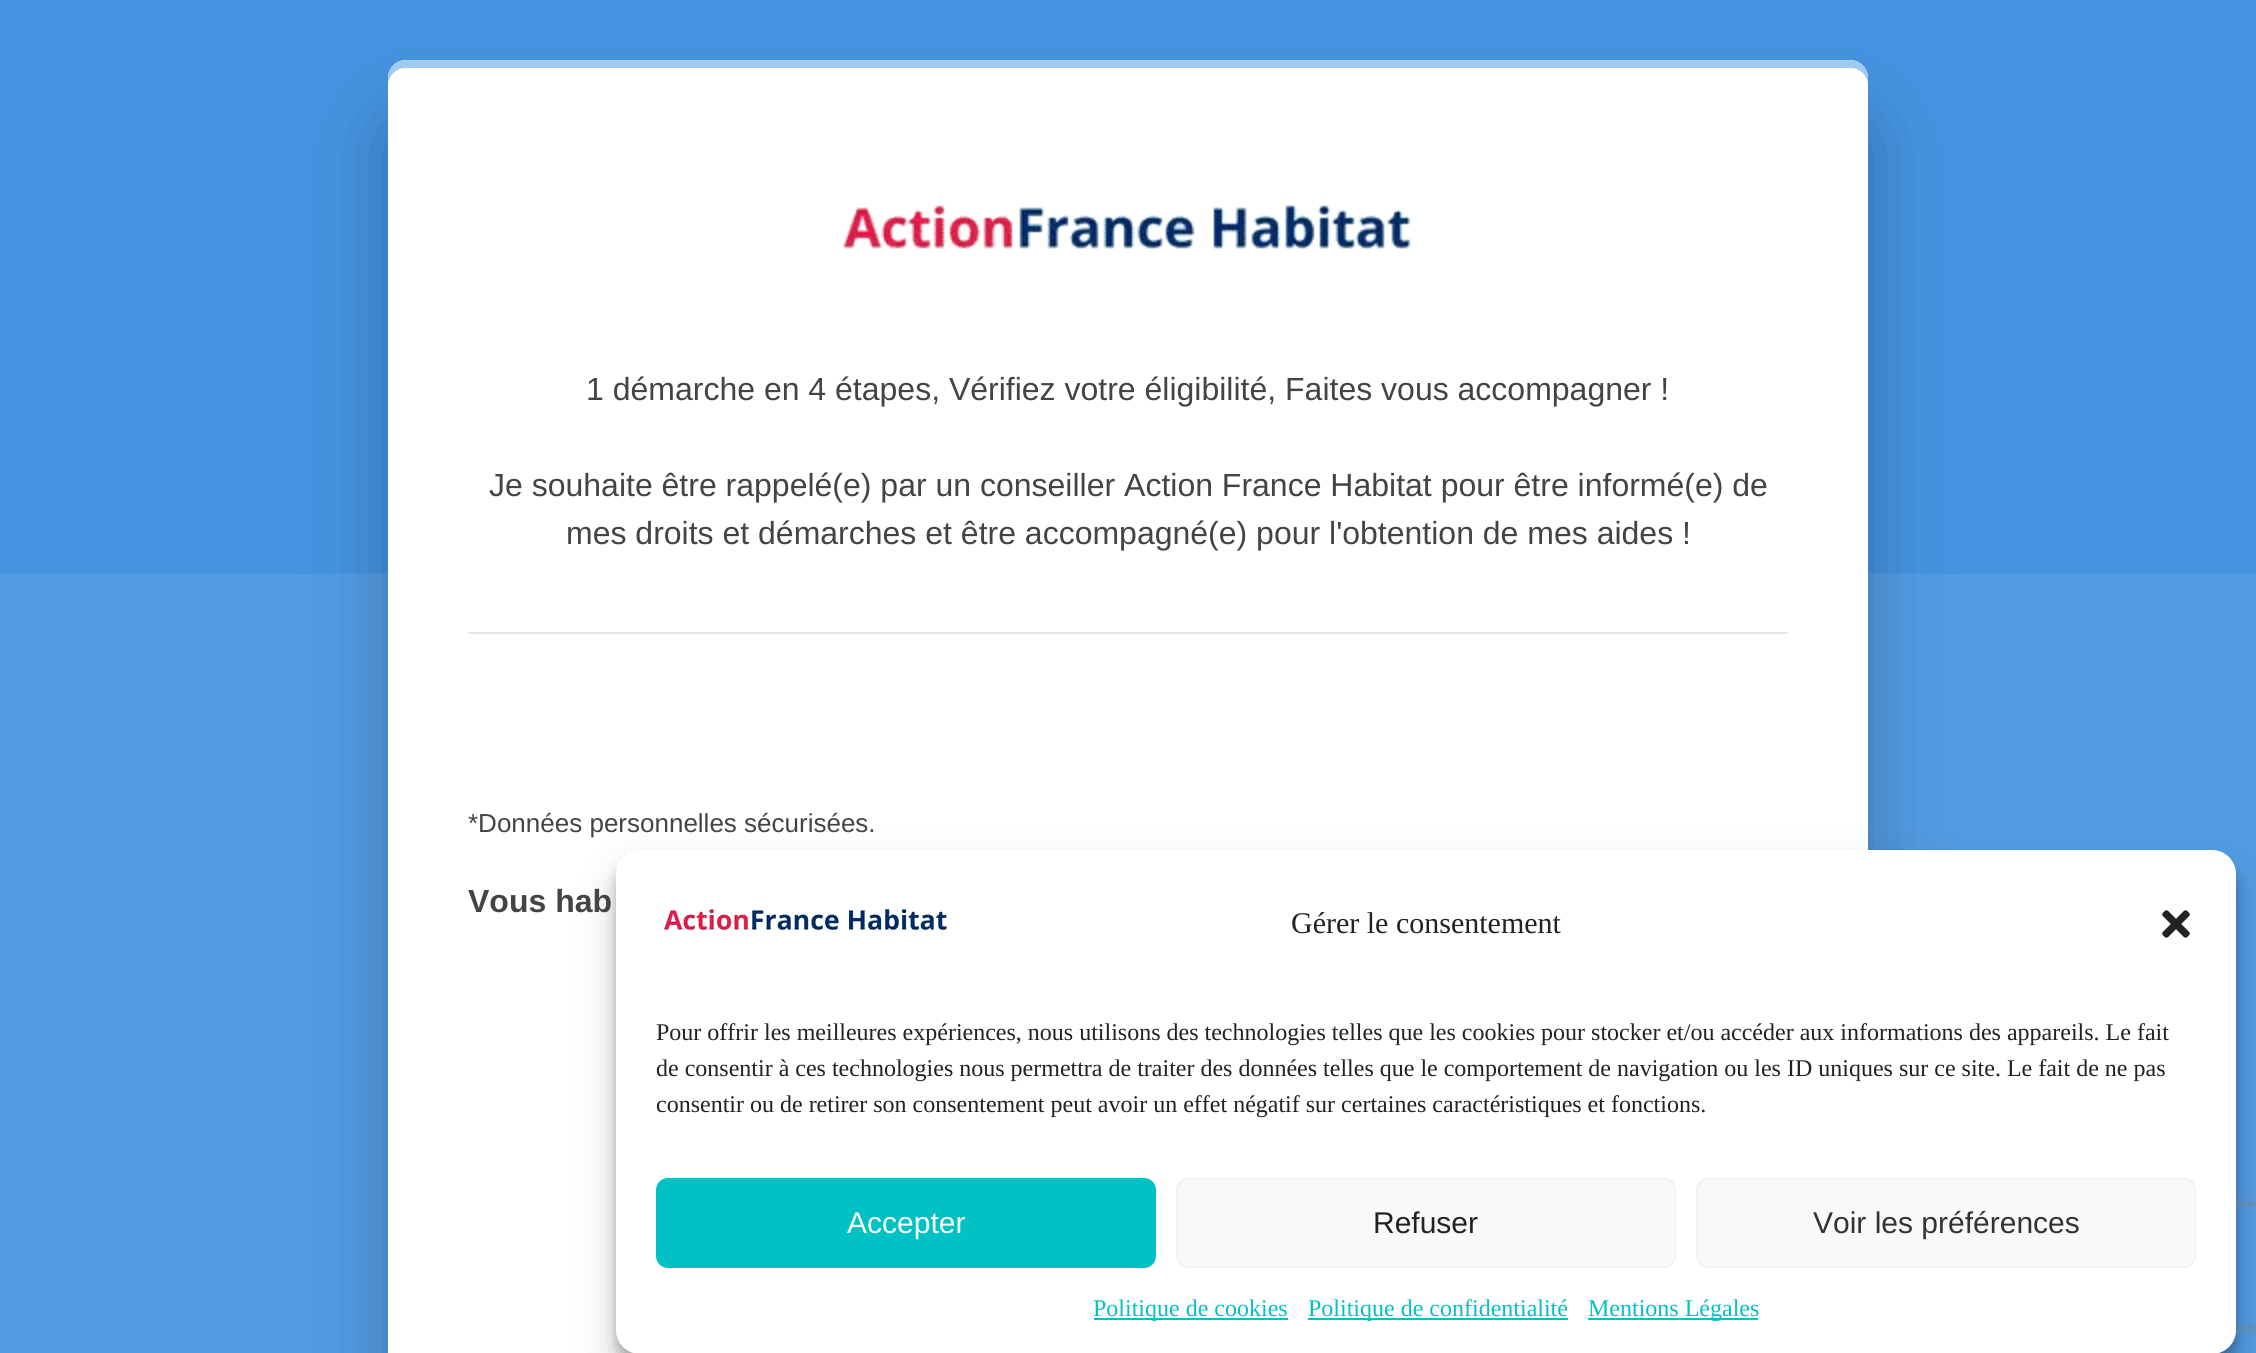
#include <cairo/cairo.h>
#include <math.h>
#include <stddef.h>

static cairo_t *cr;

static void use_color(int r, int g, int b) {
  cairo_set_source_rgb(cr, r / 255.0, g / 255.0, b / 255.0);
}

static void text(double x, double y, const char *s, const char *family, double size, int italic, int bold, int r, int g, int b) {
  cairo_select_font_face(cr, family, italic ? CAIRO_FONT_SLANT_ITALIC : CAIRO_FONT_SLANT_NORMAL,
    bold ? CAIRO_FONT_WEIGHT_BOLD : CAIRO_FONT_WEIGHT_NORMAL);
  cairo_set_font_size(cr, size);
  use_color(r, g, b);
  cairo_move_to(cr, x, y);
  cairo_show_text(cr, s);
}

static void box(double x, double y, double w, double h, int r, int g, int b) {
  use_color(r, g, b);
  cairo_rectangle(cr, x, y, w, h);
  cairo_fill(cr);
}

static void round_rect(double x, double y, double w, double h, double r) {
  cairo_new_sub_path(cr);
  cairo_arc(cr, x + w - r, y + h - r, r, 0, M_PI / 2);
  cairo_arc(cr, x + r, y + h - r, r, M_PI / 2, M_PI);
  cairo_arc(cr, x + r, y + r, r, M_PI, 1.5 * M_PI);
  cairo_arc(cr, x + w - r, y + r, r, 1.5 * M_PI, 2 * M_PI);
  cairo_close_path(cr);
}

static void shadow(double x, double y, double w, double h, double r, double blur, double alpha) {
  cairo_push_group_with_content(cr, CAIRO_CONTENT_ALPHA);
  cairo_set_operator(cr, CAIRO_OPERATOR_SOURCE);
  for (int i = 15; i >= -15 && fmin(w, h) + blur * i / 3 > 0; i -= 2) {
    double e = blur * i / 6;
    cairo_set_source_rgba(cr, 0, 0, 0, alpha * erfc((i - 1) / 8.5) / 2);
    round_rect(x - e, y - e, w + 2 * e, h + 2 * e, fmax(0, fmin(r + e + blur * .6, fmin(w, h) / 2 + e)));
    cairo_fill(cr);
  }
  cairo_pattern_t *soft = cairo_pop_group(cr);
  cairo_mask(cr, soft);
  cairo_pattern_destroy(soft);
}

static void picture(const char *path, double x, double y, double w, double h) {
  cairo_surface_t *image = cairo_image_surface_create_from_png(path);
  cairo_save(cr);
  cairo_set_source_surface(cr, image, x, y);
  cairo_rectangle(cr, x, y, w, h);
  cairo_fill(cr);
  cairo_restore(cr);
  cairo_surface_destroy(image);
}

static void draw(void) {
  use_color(83, 156, 227);
  cairo_paint(cr);
  box(0, 0, 2256, 574, 69, 148, 225);
  use_color(0, 0, 0);
  shadow(388, 120, 1480, 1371, 18, 40, 0.25);
  use_color(255, 255, 255);
  round_rect(388, 60, 1480, 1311, 18);
  cairo_fill(cr);
  use_color(162, 201, 240);
  cairo_new_path(cr);
  cairo_move_to(cr, 405, 68);
  cairo_line_to(cr, 1851, 68);
  cairo_curve_to(cr, 1860, 68, 1868, 76, 1868, 85);
  cairo_line_to(cr, 1868, 78);
  cairo_curve_to(cr, 1868, 68, 1860, 60, 1850, 60);
  cairo_line_to(cr, 406, 60);
  cairo_curve_to(cr, 396, 60, 388, 68, 388, 78);
  cairo_line_to(cr, 388, 85);
  cairo_curve_to(cr, 388, 76, 396, 68, 405, 68);
  cairo_close_path(cr);
  cairo_fill(cr);
  picture("img_01.png", 843, 205, 568, 44);
  box(468, 632, 1320, 2, 230, 230, 230);
  use_color(0, 0, 0);
  shadow(616, 862, 1620, 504, 24, 6, 0.23);
  shadow(616, 870, 1620, 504, 24, 20, 0.19);
  cairo_save(cr);
  cairo_set_fill_rule(cr, CAIRO_FILL_RULE_EVEN_ODD);
  cairo_new_path(cr);
  cairo_move_to(cr, 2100, 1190);
  cairo_line_to(cr, 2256, 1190);
  cairo_line_to(cr, 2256, 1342);
  cairo_line_to(cr, 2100, 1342);
  cairo_close_path(cr);
  cairo_move_to(cr, 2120, 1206);
  cairo_line_to(cr, 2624, 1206);
  cairo_curve_to(cr, 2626, 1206, 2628, 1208, 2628, 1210);
  cairo_line_to(cr, 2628, 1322);
  cairo_curve_to(cr, 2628, 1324, 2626, 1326, 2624, 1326);
  cairo_line_to(cr, 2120, 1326);
  cairo_curve_to(cr, 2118, 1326, 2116, 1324, 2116, 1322);
  cairo_line_to(cr, 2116, 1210);
  cairo_curve_to(cr, 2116, 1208, 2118, 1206, 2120, 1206);
  cairo_close_path(cr);
  cairo_clip(cr);
  use_color(128, 128, 128);
  shadow(2116, 1206, 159, 120, 4, 5, 1);
  cairo_restore(cr);
  use_color(255, 255, 255);
  round_rect(616, 850, 1620, 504, 24);
  cairo_fill(cr);
  picture("img_02.png", 664, 909, 283, 21);
  picture("img_03.png", 2162, 910, 28, 28);
  use_color(0, 193, 196);
  round_rect(657, 1179, 498, 88, 11);
  cairo_fill_preserve(cr);
  cairo_stroke(cr);
  use_color(249, 249, 249);
  round_rect(1177, 1179, 498, 88, 11);
  cairo_fill_preserve(cr);
  use_color(242, 242, 242);
  cairo_stroke(cr);
  use_color(249, 249, 249);
  round_rect(1697, 1179, 498, 88, 11);
  cairo_fill_preserve(cr);
  use_color(242, 242, 242);
  cairo_stroke(cr);
  box(1094, 1318, 194, 2, 0, 193, 196);
  box(1308, 1318, 260, 2, 0, 193, 196);
  box(1588, 1318, 170, 2, 0, 193, 196);
  text(586, 400, "1 démarche en 4 étapes, Vérifiez votre éligibilité, Faites vous accompagner !", "Liberation Sans", 32, 0, 0, 68, 68, 68);
  text(489, 496, "Je souhaite être rappelé(e) par un conseiller Action France Habitat pour être informé(e) de", "Liberation Sans", 32, 0, 0, 68, 68, 68);
  text(566, 544, "mes droits et démarches et être accompagné(e) pour l'obtention de mes aides !", "Liberation Sans", 32, 0, 0, 68, 68, 68);
  text(468, 832, "*Données personnelles sécurisées.", "Liberation Sans", 26, 0, 0, 68, 68, 68);
  text(468, 912, "Vous hab", "Liberation Sans", 32, 0, 1, 68, 68, 68);
  text(1291, 933, "Gérer le consentement", "Liberation Serif", 30, 0, 0, 34, 34, 34);
  text(656, 1040, "Pour offrir les meilleures expériences, nous utilisons des technologies telles que les cookies pour stocker et/ou accéder aux informations des appareils. Le fait", "Liberation Serif", 24, 0, 0, 34, 34, 34);
  text(656, 1076, "de consentir à ces technologies nous permettra de traiter des données telles que le comportement de navigation ou les ID uniques sur ce site. Le fait de ne pas", "Liberation Serif", 24, 0, 0, 34, 34, 34);
  text(656, 1112, "consentir ou de retirer son consentement peut avoir un effet négatif sur certaines caractéristiques et fonctions.", "Liberation Serif", 24, 0, 0, 34, 34, 34);
  text(847, 1233, "Accepter", "Liberation Sans", 30, 0, 0, 255, 255, 255);
  text(1373, 1233, "Refuser", "Liberation Sans", 30, 0, 0, 34, 34, 34);
  text(1813, 1233, "Voir les préférences", "Liberation Sans", 30, 0, 0, 51, 51, 51);
  text(1093, 1316, "Politique de cookies", "Liberation Serif", 24, 0, 0, 0, 193, 196);
  text(1308, 1316, "Politique de confidentialité", "Liberation Serif", 24, 0, 0, 0, 193, 196);
  text(1588, 1316, "Mentions Légales", "Liberation Serif", 24, 0, 0, 0, 193, 196);
}

int main(void) {
  cairo_surface_t *surface = cairo_image_surface_create(CAIRO_FORMAT_RGB24, 2256, 1353);
  cr = cairo_create(surface);
  cairo_font_options_t *options = cairo_font_options_create();
  cairo_font_options_set_hint_metrics(options, CAIRO_HINT_METRICS_OFF);
  cairo_font_options_set_hint_style(options, CAIRO_HINT_STYLE_NONE);
  cairo_set_font_options(cr, options);
  cairo_set_miter_limit(cr, 4);
  draw();
  cairo_surface_write_to_png(surface, "out.png");
  cairo_font_options_destroy(options);
  cairo_destroy(cr);
  cairo_surface_destroy(surface);
  return 0;
}
